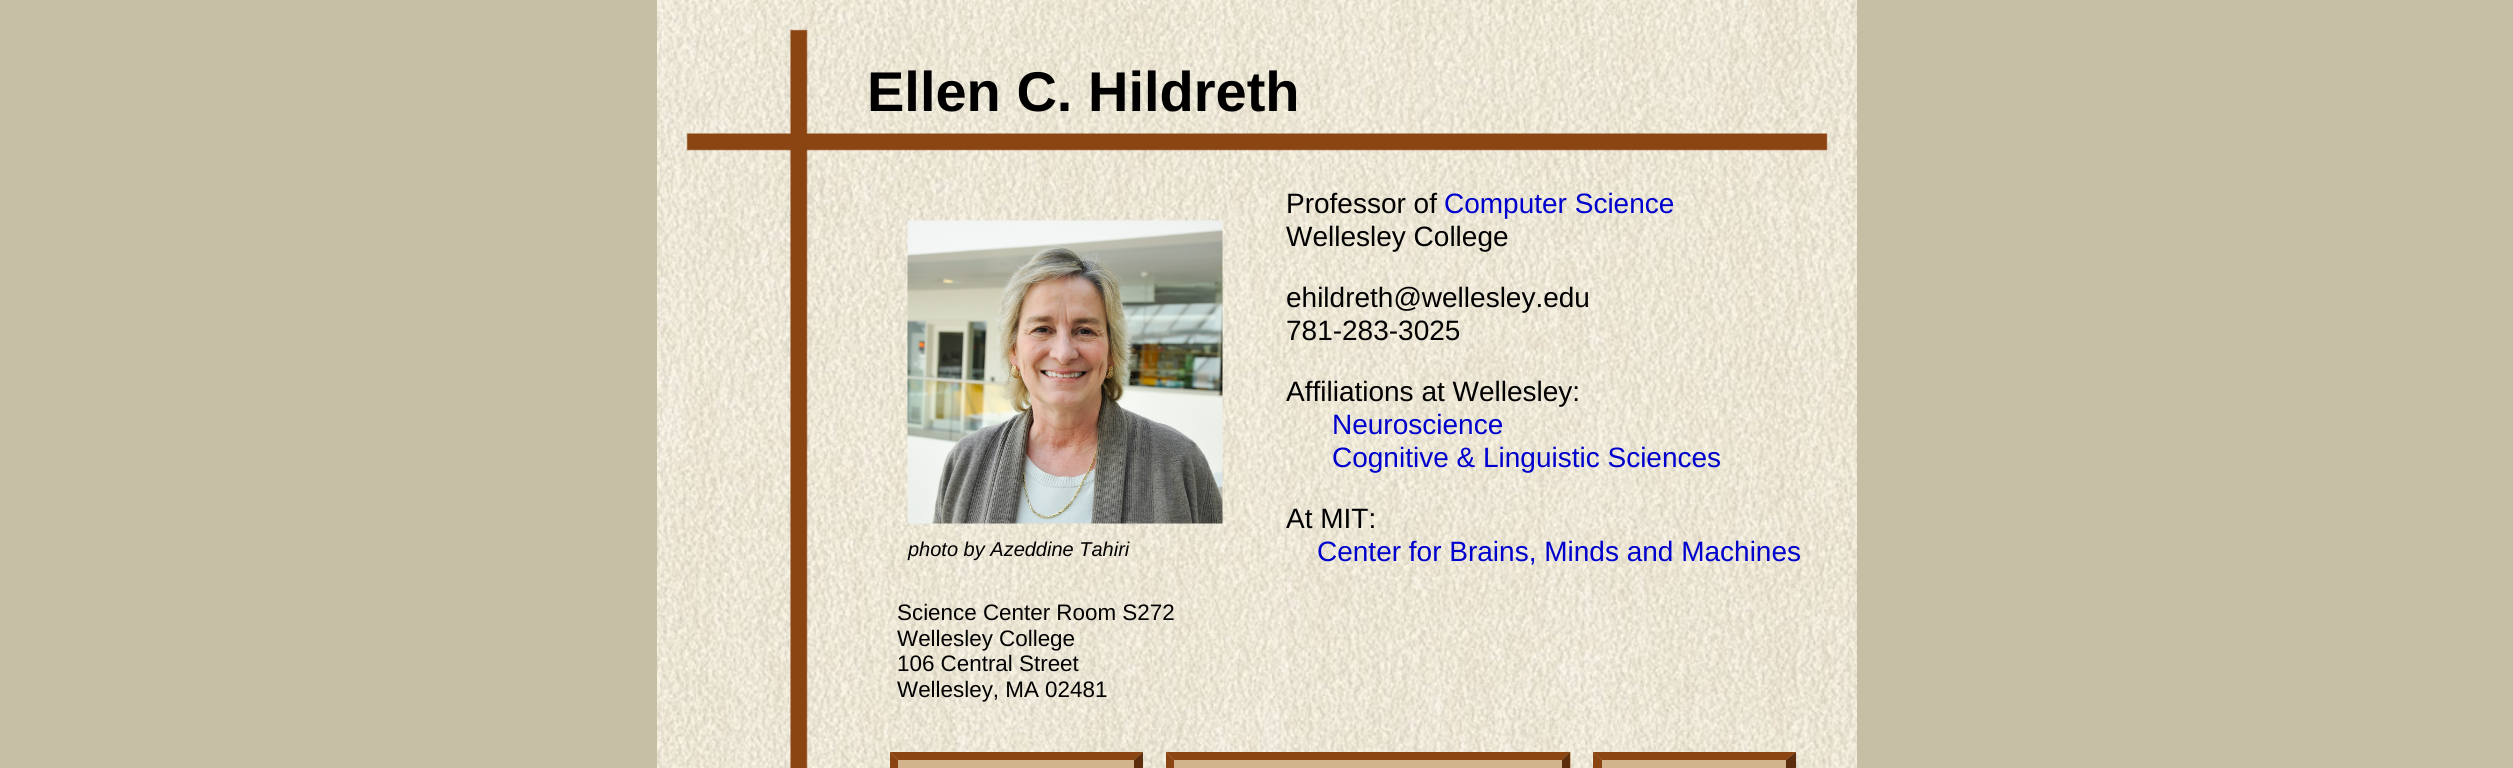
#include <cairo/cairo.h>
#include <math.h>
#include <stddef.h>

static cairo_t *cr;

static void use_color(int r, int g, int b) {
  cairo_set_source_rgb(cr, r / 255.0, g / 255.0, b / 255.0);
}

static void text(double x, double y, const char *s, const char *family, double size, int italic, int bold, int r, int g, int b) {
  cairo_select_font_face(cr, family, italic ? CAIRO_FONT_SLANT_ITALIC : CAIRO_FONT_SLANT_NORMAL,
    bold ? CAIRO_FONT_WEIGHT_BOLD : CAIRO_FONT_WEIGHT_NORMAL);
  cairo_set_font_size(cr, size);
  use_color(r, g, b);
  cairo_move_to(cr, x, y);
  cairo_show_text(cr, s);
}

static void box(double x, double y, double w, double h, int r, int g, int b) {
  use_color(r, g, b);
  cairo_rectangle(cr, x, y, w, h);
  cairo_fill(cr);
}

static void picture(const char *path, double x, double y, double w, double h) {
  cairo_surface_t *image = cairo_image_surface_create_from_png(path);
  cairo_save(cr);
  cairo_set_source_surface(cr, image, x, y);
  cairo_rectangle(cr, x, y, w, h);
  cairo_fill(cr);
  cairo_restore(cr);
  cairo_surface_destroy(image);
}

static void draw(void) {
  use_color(199, 191, 165);
  cairo_paint(cr);
  picture("img_01.png", 657, 0, 1200, 768);
  picture("img_02.png", 907, 220, 316, 304);
  box(890, 752, 253, 16, 210, 180, 140);
  use_color(139, 69, 19);
  cairo_new_path(cr);
  cairo_move_to(cr, 890, 752);
  cairo_line_to(cr, 1143, 752);
  cairo_line_to(cr, 1134, 760);
  cairo_line_to(cr, 898, 760);
  cairo_close_path(cr);
  cairo_fill(cr);
  use_color(93, 46, 13);
  cairo_new_path(cr);
  cairo_move_to(cr, 1143, 752);
  cairo_line_to(cr, 1143, 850);
  cairo_line_to(cr, 1134, 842);
  cairo_line_to(cr, 1134, 760);
  cairo_close_path(cr);
  cairo_fill(cr);
  use_color(139, 69, 19);
  cairo_new_path(cr);
  cairo_move_to(cr, 890, 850);
  cairo_line_to(cr, 890, 752);
  cairo_line_to(cr, 898, 760);
  cairo_line_to(cr, 898, 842);
  cairo_close_path(cr);
  cairo_fill(cr);
  box(1166, 752, 405, 16, 210, 180, 140);
  use_color(139, 69, 19);
  cairo_new_path(cr);
  cairo_move_to(cr, 1166, 752);
  cairo_line_to(cr, 1570, 752);
  cairo_line_to(cr, 1562, 760);
  cairo_line_to(cr, 1174, 760);
  cairo_close_path(cr);
  cairo_fill(cr);
  use_color(93, 46, 13);
  cairo_new_path(cr);
  cairo_move_to(cr, 1570, 752);
  cairo_line_to(cr, 1570, 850);
  cairo_line_to(cr, 1562, 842);
  cairo_line_to(cr, 1562, 760);
  cairo_close_path(cr);
  cairo_fill(cr);
  use_color(139, 69, 19);
  cairo_new_path(cr);
  cairo_move_to(cr, 1166, 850);
  cairo_line_to(cr, 1166, 752);
  cairo_line_to(cr, 1174, 760);
  cairo_line_to(cr, 1174, 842);
  cairo_close_path(cr);
  cairo_fill(cr);
  box(1593, 752, 203, 16, 210, 180, 140);
  use_color(139, 69, 19);
  cairo_new_path(cr);
  cairo_move_to(cr, 1593, 752);
  cairo_line_to(cr, 1796, 752);
  cairo_line_to(cr, 1786, 760);
  cairo_line_to(cr, 1602, 760);
  cairo_close_path(cr);
  cairo_fill(cr);
  use_color(93, 46, 13);
  cairo_new_path(cr);
  cairo_move_to(cr, 1796, 752);
  cairo_line_to(cr, 1796, 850);
  cairo_line_to(cr, 1786, 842);
  cairo_line_to(cr, 1786, 760);
  cairo_close_path(cr);
  cairo_fill(cr);
  use_color(139, 69, 19);
  cairo_new_path(cr);
  cairo_move_to(cr, 1593, 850);
  cairo_line_to(cr, 1593, 752);
  cairo_line_to(cr, 1602, 760);
  cairo_line_to(cr, 1602, 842);
  cairo_close_path(cr);
  cairo_fill(cr);
  text(867, 111, "Ellen C. Hildreth", "Liberation Sans", 56, 0, 1, 0, 0, 0);
  text(908, 556, "photo by Azeddine Tahiri", "Liberation Sans", 20, 1, 0, 0, 0, 0);
  text(1286, 213, "Professor of", "Liberation Sans", 28, 0, 0, 0, 0, 0);
  text(1444, 213, "Computer Science", "Liberation Sans", 28, 0, 0, 0, 0, 205);
  text(1286, 246, "Wellesley College", "Liberation Sans", 28, 0, 0, 0, 0, 0);
  text(1286, 307, "ehildreth@wellesley.edu", "Liberation Sans", 28, 0, 0, 0, 0, 0);
  text(1286, 340, "781-283-3025", "Liberation Sans", 28, 0, 0, 0, 0, 0);
  text(1286, 401, "Affiliations at Wellesley:", "Liberation Sans", 28, 0, 0, 0, 0, 0);
  text(1332, 434, "Neuroscience", "Liberation Sans", 28, 0, 0, 0, 0, 205);
  text(1332, 467, "Cognitive & Linguistic Sciences", "Liberation Sans", 28, 0, 0, 0, 0, 205);
  text(1286, 528, "At MIT:", "Liberation Sans", 28, 0, 0, 0, 0, 0);
  text(1317, 561, "Center for Brains, Minds and Machines", "Liberation Sans", 28, 0, 0, 0, 0, 205);
  text(897, 620, "Science Center Room S272", "Liberation Sans", 22.4, 0, 0, 0, 0, 0);
  text(897, 646, "Wellesley College", "Liberation Sans", 22.4, 0, 0, 0, 0, 0);
  text(897, 671, "106 Central Street", "Liberation Sans", 22.4, 0, 0, 0, 0, 0);
  text(897, 697, "Wellesley, MA 02481", "Liberation Sans", 22.4, 0, 0, 0, 0, 0);
}

int main(void) {
  cairo_surface_t *surface = cairo_image_surface_create(CAIRO_FORMAT_RGB24, 2513, 768);
  cr = cairo_create(surface);
  cairo_font_options_t *options = cairo_font_options_create();
  cairo_font_options_set_hint_metrics(options, CAIRO_HINT_METRICS_OFF);
  cairo_font_options_set_hint_style(options, CAIRO_HINT_STYLE_NONE);
  cairo_set_font_options(cr, options);
  cairo_set_miter_limit(cr, 4);
  draw();
  cairo_surface_write_to_png(surface, "out.png");
  cairo_font_options_destroy(options);
  cairo_destroy(cr);
  cairo_surface_destroy(surface);
  return 0;
}
